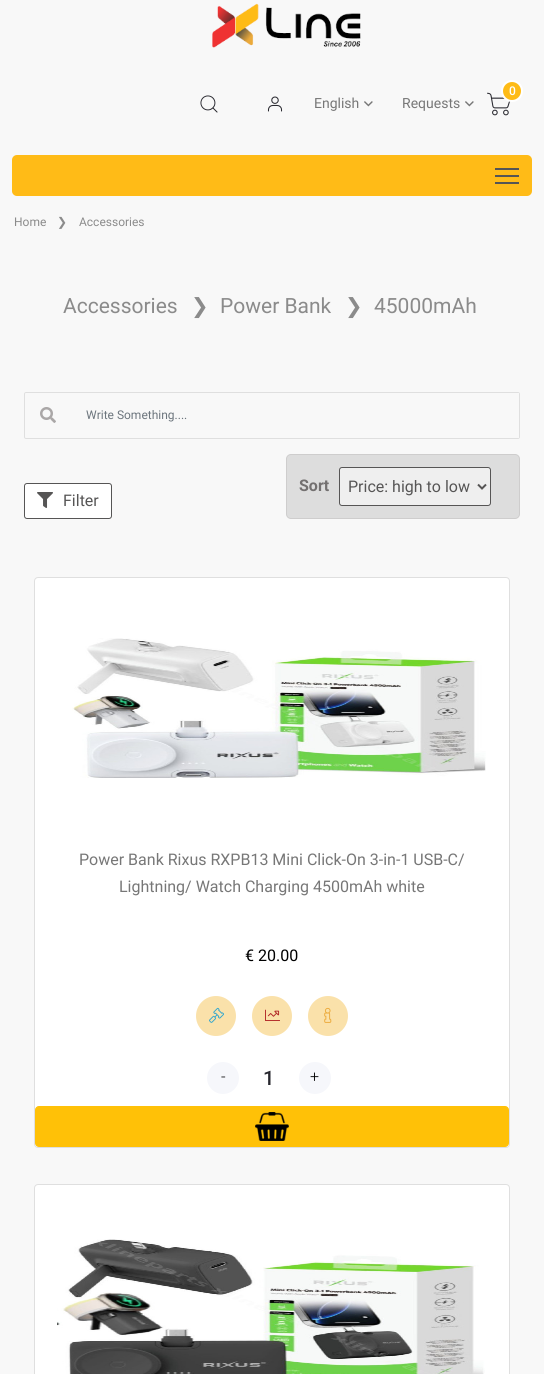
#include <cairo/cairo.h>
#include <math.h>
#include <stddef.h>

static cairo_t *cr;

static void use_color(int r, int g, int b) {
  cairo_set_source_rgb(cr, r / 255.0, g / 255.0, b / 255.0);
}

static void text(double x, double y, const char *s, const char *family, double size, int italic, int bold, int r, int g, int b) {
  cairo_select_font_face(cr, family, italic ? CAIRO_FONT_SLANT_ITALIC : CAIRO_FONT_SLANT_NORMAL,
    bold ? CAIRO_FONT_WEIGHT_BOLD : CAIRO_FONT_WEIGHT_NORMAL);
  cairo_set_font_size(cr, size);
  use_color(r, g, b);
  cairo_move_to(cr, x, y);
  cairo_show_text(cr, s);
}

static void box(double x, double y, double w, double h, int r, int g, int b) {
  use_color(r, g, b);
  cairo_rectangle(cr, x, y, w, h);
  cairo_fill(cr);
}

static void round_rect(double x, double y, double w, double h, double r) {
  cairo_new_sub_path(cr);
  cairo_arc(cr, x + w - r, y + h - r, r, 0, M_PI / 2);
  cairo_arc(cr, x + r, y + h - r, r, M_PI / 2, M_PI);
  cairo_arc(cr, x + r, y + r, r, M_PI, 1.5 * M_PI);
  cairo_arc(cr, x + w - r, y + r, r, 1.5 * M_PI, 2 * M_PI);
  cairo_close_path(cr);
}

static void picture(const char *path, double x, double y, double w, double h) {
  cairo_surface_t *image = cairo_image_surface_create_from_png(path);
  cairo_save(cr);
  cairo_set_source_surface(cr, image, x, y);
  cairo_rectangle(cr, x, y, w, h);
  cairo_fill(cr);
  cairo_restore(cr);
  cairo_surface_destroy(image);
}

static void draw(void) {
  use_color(248, 248, 248);
  cairo_paint(cr);
  picture("img_01.png", 212, 3, 149, 45);
  picture("img_02.png", 487, 92, 24, 24);
  use_color(254, 187, 22);
  cairo_arc(cr, 512, 91, 10, 0, 2 * M_PI);
  cairo_fill_preserve(cr);
  use_color(255, 255, 255);
  cairo_stroke(cr);
  picture("img_03.png", 200, 95, 18, 18);
  picture("img_04.png", 267, 96, 16, 16);
  picture("img_05.png", 364, 101, 9, 6);
  picture("img_05.png", 465, 101, 9, 6);
  use_color(255, 187, 23);
  round_rect(12, 155, 520, 41, 5);
  cairo_fill(cr);
  box(495, 175, 24, 2, 85, 85, 85);
  box(495, 168, 24, 2, 85, 85, 85);
  box(495, 182, 24, 2, 85, 85, 85);
  round_rect(24.5, 392.5, 495, 46, 1.5);
  use_color(223, 223, 223);
  cairo_set_line_width(cr, 1);
  cairo_stroke(cr);
  picture("img_06.png", 40, 407, 16, 16);
  box(518, 393, 1, 45, 248, 248, 248);
  use_color(221, 221, 221);
  round_rect(286.5, 454.5, 233, 64, 4.5);
  cairo_fill_preserve(cr);
  use_color(206, 205, 205);
  cairo_stroke(cr);
  use_color(239, 239, 239);
  round_rect(339.5, 467.5, 151, 38, 2.5);
  cairo_fill_preserve(cr);
  use_color(86, 85, 85);
  cairo_stroke(cr);
  cairo_new_path(cr);
  cairo_move_to(cr, 478, 484.5);
  cairo_line_to(cr, 482, 488.5);
  cairo_line_to(cr, 486, 484.5);
  cairo_set_line_width(cr, 2);
  cairo_stroke(cr);
  use_color(255, 255, 255);
  round_rect(24.5, 483.5, 87, 35, 2.5);
  cairo_fill_preserve(cr);
  use_color(86, 85, 85);
  cairo_set_line_width(cr, 1);
  cairo_stroke(cr);
  picture("img_07.png", 37, 492, 16, 16);
  use_color(255, 255, 255);
  round_rect(34.5, 577.5, 475, 570, 3.5);
  cairo_fill_preserve(cr);
  use_color(223, 223, 223);
  cairo_stroke(cr);
  picture("img_08.png", 72, 638, 414, 140);
  use_color(250, 225, 170);
  cairo_arc(cr, 216, 1016, 20, 0, 2 * M_PI);
  cairo_fill(cr);
  picture("img_09.png", 209, 1007, 15, 16);
  cairo_arc(cr, 272, 1016, 20, 0, 2 * M_PI);
  cairo_fill(cr);
  picture("img_10.png", 265, 1009, 15, 12);
  cairo_arc(cr, 328, 1016, 20, 0, 2 * M_PI);
  cairo_fill(cr);
  picture("img_11.png", 324, 1007, 8, 16);
  use_color(246, 247, 251);
  cairo_arc(cr, 223, 1078, 16, 0, 2 * M_PI);
  cairo_fill(cr);
  cairo_arc(cr, 315, 1078, 16, 0, 2 * M_PI);
  cairo_fill(cr);
  use_color(255, 193, 7);
  round_rect(35.5, 1106.5, 473, 40, 3.5);
  cairo_fill_preserve(cr);
  cairo_stroke(cr);
  picture("img_12.png", 255, 1112, 34, 29);
  use_color(255, 255, 255);
  round_rect(34.5, 1184.5, 475, 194, 3.5);
  cairo_fill_preserve(cr);
  use_color(223, 223, 223);
  cairo_stroke(cr);
  picture("img_13.png", 57, 1239, 428, 135);
  text(509, 95, "0", "Roboto Medium", 12, 0, 0, 255, 255, 255);
  text(314, 108, "English", "Roboto", 14, 0, 0, 119, 119, 119);
  text(402, 108, "Requests", "Roboto", 14, 0, 0, 119, 119, 119);
  text(14, 226, "Home", "Roboto", 12, 0, 0, 139, 139, 139);
  text(57, 226, "❯", "DejaVu Sans", 12, 0, 0, 139, 139, 139);
  text(79, 226, "Accessories", "Roboto", 12, 0, 0, 139, 139, 139);
  text(63, 313, "Accessories", "Roboto", 21, 0, 0, 139, 139, 139);
  text(191, 313, "❯", "DejaVu Sans", 21, 0, 0, 139, 139, 139);
  text(220, 313, "Power Bank", "Roboto", 21, 0, 0, 139, 139, 139);
  text(345, 313, "❯", "DejaVu Sans", 21, 0, 0, 139, 139, 139);
  text(374, 313, "45000mAh", "Roboto", 21, 0, 0, 139, 139, 139);
  text(86, 419, "Write Something....", "Roboto", 12, 0, 0, 108, 117, 125);
  text(299, 491, "Sort", "Roboto", 16, 0, 1, 115, 112, 112);
  text(348, 492, "Price: high to low", "Roboto", 16, 0, 0, 86, 85, 85);
  text(63, 506, "Filter", "Roboto", 16, 0, 0, 86, 85, 85);
  text(79, 865, "Power Bank Rixus RXPB13 Mini Click-On 3-in-1 USB-C/", "Roboto", 16, 0, 0, 119, 119, 119);
  text(119, 892, "Lightning/ Watch Charging 4500mAh white", "Roboto", 16, 0, 0, 119, 119, 119);
  text(245, 961, "€ 20.00", "Roboto", 16, 0, 0, 0, 0, 0);
  text(221, 1082, "-", "Roboto Light", 16, 0, 0, 0, 0, 0);
  text(263, 1085, "1", "Roboto Medium", 20, 0, 0, 39, 39, 46);
  text(310, 1082, "+", "Roboto Light", 16, 0, 0, 0, 0, 0);
}

int main(void) {
  cairo_surface_t *surface = cairo_image_surface_create(CAIRO_FORMAT_RGB24, 544, 1374);
  cr = cairo_create(surface);
  cairo_font_options_t *options = cairo_font_options_create();
  cairo_font_options_set_hint_metrics(options, CAIRO_HINT_METRICS_OFF);
  cairo_font_options_set_hint_style(options, CAIRO_HINT_STYLE_NONE);
  cairo_set_font_options(cr, options);
  cairo_set_miter_limit(cr, 4);
  draw();
  cairo_surface_write_to_png(surface, "out.png");
  cairo_font_options_destroy(options);
  cairo_destroy(cr);
  cairo_surface_destroy(surface);
  return 0;
}
